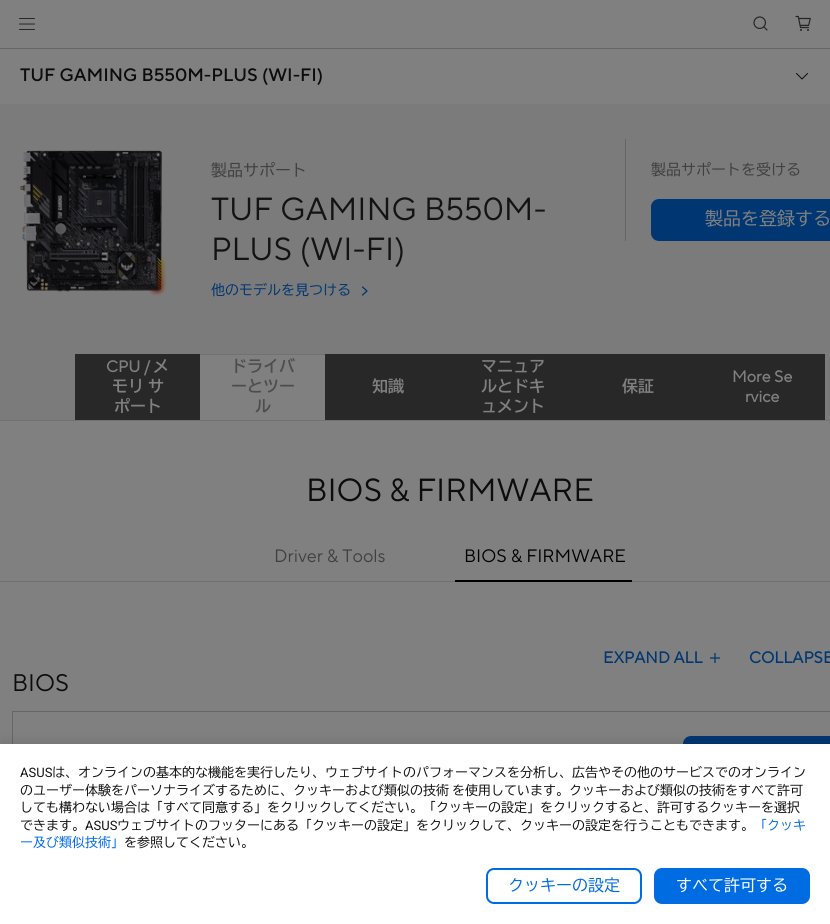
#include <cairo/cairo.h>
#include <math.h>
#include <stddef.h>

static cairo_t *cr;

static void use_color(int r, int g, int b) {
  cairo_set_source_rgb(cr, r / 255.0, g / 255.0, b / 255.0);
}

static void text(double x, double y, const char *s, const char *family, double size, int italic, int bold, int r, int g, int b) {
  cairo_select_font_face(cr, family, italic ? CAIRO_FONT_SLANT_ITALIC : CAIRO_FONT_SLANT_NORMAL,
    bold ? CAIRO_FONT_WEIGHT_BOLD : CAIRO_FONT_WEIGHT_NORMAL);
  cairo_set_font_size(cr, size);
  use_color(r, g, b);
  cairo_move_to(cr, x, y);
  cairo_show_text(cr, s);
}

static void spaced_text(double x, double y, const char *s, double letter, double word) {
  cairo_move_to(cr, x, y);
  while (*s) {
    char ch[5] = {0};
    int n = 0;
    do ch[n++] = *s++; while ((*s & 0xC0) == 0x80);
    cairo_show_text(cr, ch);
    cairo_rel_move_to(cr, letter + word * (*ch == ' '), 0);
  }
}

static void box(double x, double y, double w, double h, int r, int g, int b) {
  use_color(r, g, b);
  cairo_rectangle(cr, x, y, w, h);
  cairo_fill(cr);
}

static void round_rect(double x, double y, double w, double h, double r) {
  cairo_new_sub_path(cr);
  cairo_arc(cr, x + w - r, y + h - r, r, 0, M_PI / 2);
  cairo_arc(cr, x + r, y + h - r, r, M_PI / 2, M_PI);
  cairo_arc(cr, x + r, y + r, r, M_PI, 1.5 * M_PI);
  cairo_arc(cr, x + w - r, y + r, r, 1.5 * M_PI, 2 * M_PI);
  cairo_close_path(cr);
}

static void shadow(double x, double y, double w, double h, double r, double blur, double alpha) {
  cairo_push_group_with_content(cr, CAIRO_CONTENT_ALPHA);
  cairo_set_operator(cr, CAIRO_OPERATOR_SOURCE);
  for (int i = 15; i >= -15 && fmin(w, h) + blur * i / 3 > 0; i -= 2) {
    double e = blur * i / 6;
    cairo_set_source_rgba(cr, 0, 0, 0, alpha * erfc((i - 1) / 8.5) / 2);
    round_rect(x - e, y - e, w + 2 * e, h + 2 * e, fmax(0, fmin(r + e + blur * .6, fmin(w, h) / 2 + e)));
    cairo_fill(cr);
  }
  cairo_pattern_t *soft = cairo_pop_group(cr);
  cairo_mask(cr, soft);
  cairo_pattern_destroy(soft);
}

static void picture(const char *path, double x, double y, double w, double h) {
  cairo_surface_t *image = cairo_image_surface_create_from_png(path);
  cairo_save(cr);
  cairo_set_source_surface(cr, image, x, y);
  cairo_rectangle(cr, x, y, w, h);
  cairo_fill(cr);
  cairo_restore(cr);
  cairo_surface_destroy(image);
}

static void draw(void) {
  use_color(128, 128, 128);
  cairo_paint(cr);
  box(0, 48, 830, 1, 102, 102, 102);
  cairo_new_path(cr);
  cairo_move_to(cr, 19.5, 24);
  cairo_line_to(cr, 34.5, 24);
  cairo_move_to(cr, 19.5, 18.5);
  cairo_line_to(cr, 34.5, 18.5);
  cairo_move_to(cr, 19.5, 29.5);
  cairo_line_to(cr, 34.5, 29.5);
  use_color(39, 39, 39);
  cairo_set_line_width(cr, 1);
  cairo_set_line_cap(cr, CAIRO_LINE_CAP_ROUND);
  cairo_stroke(cr);
  picture("img_01.png", 753, 16, 15, 15);
  picture("img_02.png", 795, 15, 16, 16);
  cairo_new_path(cr);
  cairo_move_to(cr, 796.5, 73.5);
  cairo_line_to(cr, 802, 79);
  cairo_line_to(cr, 807.5, 73.5);
  use_color(12, 12, 12);
  cairo_set_line_join(cr, CAIRO_LINE_JOIN_ROUND);
  cairo_stroke(cr);
  box(0, 104, 830, 316, 123, 123, 123);
  picture("img_03.png", 20, 150, 147, 146);
  cairo_new_path(cr);
  cairo_move_to(cr, 362.5, 287);
  cairo_line_to(cr, 367, 291);
  cairo_line_to(cr, 362.5, 295);
  use_color(0, 54, 113);
  cairo_set_line_width(cr, 1.3);
  cairo_stroke(cr);
  box(625, 139, 1, 102, 101, 101, 101);
  use_color(0, 54, 113);
  cairo_new_path(cr);
  cairo_move_to(cr, 659, 199);
  cairo_line_to(cr, 830, 199);
  cairo_line_to(cr, 830, 241);
  cairo_line_to(cr, 659, 241);
  cairo_curve_to(cr, 654.5, 241, 651, 237.5, 651, 233);
  cairo_line_to(cr, 651, 207);
  cairo_curve_to(cr, 651, 202.5, 654.5, 199, 659, 199);
  cairo_close_path(cr);
  cairo_fill(cr);
  box(0, 420, 830, 1, 113, 113, 113);
  box(75, 354, 125, 66, 40, 40, 40);
  box(200, 355, 125, 65, 128, 128, 128);
  box(200, 354, 125, 1, 113, 113, 113);
  box(325, 354, 500, 66, 40, 40, 40);
  box(0, 581, 830, 1, 112, 112, 112);
  box(455, 580, 177, 2, 0, 0, 0);
  picture("img_04.png", 710, 653, 10, 10);
  cairo_rectangle(cr, 12.5, 711.5, 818, 211);
  use_color(102, 102, 102);
  cairo_set_line_width(cr, 1);
  cairo_set_line_cap(cr, CAIRO_LINE_CAP_BUTT);
  cairo_set_line_join(cr, CAIRO_LINE_JOIN_MITER);
  cairo_stroke(cr);
  use_color(0, 54, 113);
  cairo_new_path(cr);
  cairo_move_to(cr, 691, 736);
  cairo_line_to(cr, 830, 736);
  cairo_line_to(cr, 830, 771);
  cairo_line_to(cr, 691, 771);
  cairo_curve_to(cr, 686.5, 771, 683, 767.5, 683, 763);
  cairo_line_to(cr, 683, 744);
  cairo_curve_to(cr, 683, 739.5, 686.5, 736, 691, 736);
  cairo_close_path(cr);
  cairo_fill(cr);
  use_color(0, 0, 0);
  shadow(1, 742, 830, 180, 0, 6, 0.1);
  box(0, 744, 830, 180, 255, 255, 255);
  round_rect(487, 869, 154, 34, 7);
  use_color(0, 108, 225);
  cairo_set_line_width(cr, 2);
  cairo_stroke(cr);
  round_rect(655, 869, 154, 34, 7);
  cairo_fill_preserve(cr);
  cairo_stroke(cr);
  text(20, 81, "TUF GAMING B550M-PLUS (WI-FI)", "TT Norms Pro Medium", 18, 0, 0, 12, 12, 12);
  text(211, 176, "製品サポート", "BIZ UDGothic", 16, 0, 0, 64, 64, 64);
  text(211, 220, "TUF GAMING B550M-", "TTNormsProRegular", 32, 0, 0, 19, 19, 19);
  text(211, 260, "PLUS (WI-FI)", "TTNormsProRegular", 32, 0, 0, 19, 19, 19);
  text(211, 295, "他のモデルを見つける", "BIZ UDGothic", 14, 0, 0, 0, 54, 113);
  text(651, 175, "製品サポートを受ける", "BIZ UDGothic", 15, 0, 0, 64, 64, 64);
  text(705, 225, "製品を登録する", "BIZ UDGothic", 18, 0, 0, 128, 128, 128);
  text(106, 372, "CPU /", "TTNormsProRegular", 16, 0, 1, 128, 128, 128);
  text(153, 372, "メ", "BIZ UDGothic", 16, 0, 1, 128, 128, 128);
  spaced_text(112, 392, "モリ サ", 0, -4);
  text(114, 412, "ポート", "BIZ UDGothic", 16, 0, 1, 128, 128, 128);
  text(231, 372, "ドライバ", "BIZ UDGothic", 16, 0, 1, 77, 77, 77);
  text(231, 392, "ーとツー", "BIZ UDGothic", 16, 0, 1, 77, 77, 77);
  text(255, 412, "ル", "BIZ UDGothic", 16, 0, 1, 77, 77, 77);
  text(372, 392, "知識", "BIZ UDGothic", 16, 0, 1, 128, 128, 128);
  text(481, 372, "マニュア", "BIZ UDGothic", 16, 0, 1, 128, 128, 128);
  text(481, 392, "ルとドキ", "BIZ UDGothic", 16, 0, 1, 128, 128, 128);
  text(481, 412, "ュメント", "BIZ UDGothic", 16, 0, 1, 128, 128, 128);
  text(622, 392, "保証", "BIZ UDGothic", 16, 0, 1, 128, 128, 128);
  text(732, 382, "More Se", "TTNormsProRegular", 16, 0, 1, 128, 128, 128);
  text(745, 402, "rvice", "TTNormsProRegular", 16, 0, 1, 128, 128, 128);
  text(306, 501, "BIOS & FIRMWARE", "TTNormsProRegular", 32, 0, 0, 12, 12, 12);
  text(274, 562, "Driver & Tools", "TTNormsProRegular", 18, 0, 0, 64, 64, 64);
  text(464, 562, "BIOS & FIRMWARE", "TTNormsProRegular", 18, 0, 0, 0, 0, 0);
  text(603, 663, "EXPAND ALL", "TTNormsProRegular", 16, 0, 1, 0, 54, 113);
  text(749, 663, "COLLAPSE", "TTNormsProRegular", 16, 0, 1, 0, 54, 113);
  text(12, 691, "BIOS", "TTNormsProRegular", 24, 0, 0, 12, 12, 12);
  text(20, 777, "ASUS", "Roboto", 13, 0, 0, 19, 19, 19);
  text(52, 777, "は、オンラインの基本的な機能を実行したり、ウェブサイトのパフォーマンスを分析し、広告やその他のサービスでのオンライン", "BIZ UDGothic", 13, 0, 0, 19, 19, 19);
  text(20, 795, "のユーザー体験をパーソナライズするために、クッキーおよび類似の技術", "BIZ UDGothic", 13, 0, 0, 19, 19, 19);
  text(452, 795, "を使用しています。クッキーおよび類似の技術をすべて許可", "BIZ UDGothic", 13, 0, 0, 19, 19, 19);
  text(20, 812, "しても構わない場合は「すべて同意する」をクリックしてください。「クッキーの設定」をクリックすると、許可するクッキーを選択", "BIZ UDGothic", 13, 0, 0, 19, 19, 19);
  text(20, 830, "できます。", "BIZ UDGothic", 13, 0, 0, 19, 19, 19);
  text(85, 830, "ASUS", "Roboto", 13, 0, 0, 19, 19, 19);
  text(117, 830, "ウェブサイトのフッターにある「クッキーの設定」をクリックして、クッキーの設定を行うこともできます。", "BIZ UDGothic", 13, 0, 0, 19, 19, 19);
  text(754, 830, "「クッキ", "BIZ UDGothic", 13, 0, 0, 0, 108, 225);
  text(20, 847, "ー及び類似技術」", "BIZ UDGothic", 13, 0, 0, 0, 108, 225);
  text(124, 847, "を参照してください。", "BIZ UDGothic", 13, 0, 0, 19, 19, 19);
  text(508, 891, "クッキーの設定", "BIZ UDGothic", 16, 0, 0, 0, 108, 225);
  text(676, 891, "すべて許可する", "BIZ UDGothic", 16, 0, 0, 255, 255, 255);
}

int main(void) {
  cairo_surface_t *surface = cairo_image_surface_create(CAIRO_FORMAT_RGB24, 830, 924);
  cr = cairo_create(surface);
  cairo_font_options_t *options = cairo_font_options_create();
  cairo_font_options_set_hint_metrics(options, CAIRO_HINT_METRICS_OFF);
  cairo_font_options_set_hint_style(options, CAIRO_HINT_STYLE_NONE);
  cairo_set_font_options(cr, options);
  cairo_set_miter_limit(cr, 4);
  draw();
  cairo_surface_write_to_png(surface, "out.png");
  cairo_font_options_destroy(options);
  cairo_destroy(cr);
  cairo_surface_destroy(surface);
  return 0;
}
